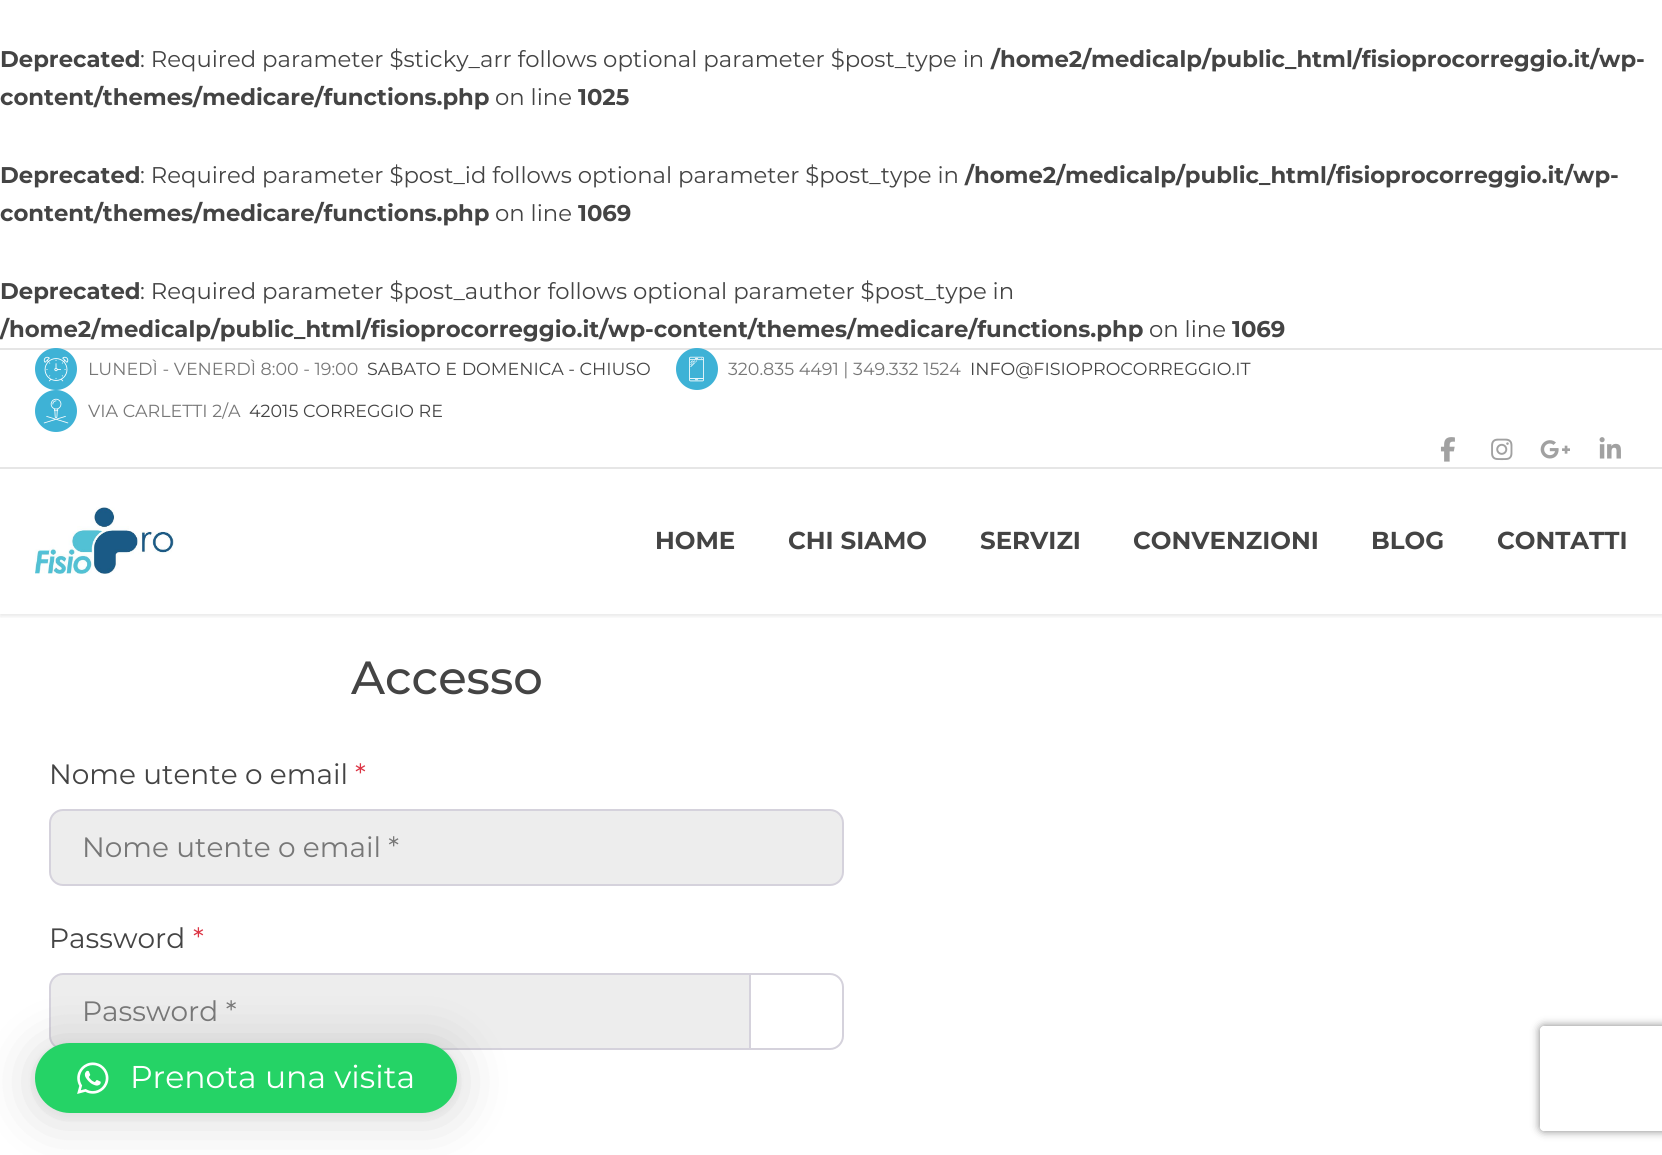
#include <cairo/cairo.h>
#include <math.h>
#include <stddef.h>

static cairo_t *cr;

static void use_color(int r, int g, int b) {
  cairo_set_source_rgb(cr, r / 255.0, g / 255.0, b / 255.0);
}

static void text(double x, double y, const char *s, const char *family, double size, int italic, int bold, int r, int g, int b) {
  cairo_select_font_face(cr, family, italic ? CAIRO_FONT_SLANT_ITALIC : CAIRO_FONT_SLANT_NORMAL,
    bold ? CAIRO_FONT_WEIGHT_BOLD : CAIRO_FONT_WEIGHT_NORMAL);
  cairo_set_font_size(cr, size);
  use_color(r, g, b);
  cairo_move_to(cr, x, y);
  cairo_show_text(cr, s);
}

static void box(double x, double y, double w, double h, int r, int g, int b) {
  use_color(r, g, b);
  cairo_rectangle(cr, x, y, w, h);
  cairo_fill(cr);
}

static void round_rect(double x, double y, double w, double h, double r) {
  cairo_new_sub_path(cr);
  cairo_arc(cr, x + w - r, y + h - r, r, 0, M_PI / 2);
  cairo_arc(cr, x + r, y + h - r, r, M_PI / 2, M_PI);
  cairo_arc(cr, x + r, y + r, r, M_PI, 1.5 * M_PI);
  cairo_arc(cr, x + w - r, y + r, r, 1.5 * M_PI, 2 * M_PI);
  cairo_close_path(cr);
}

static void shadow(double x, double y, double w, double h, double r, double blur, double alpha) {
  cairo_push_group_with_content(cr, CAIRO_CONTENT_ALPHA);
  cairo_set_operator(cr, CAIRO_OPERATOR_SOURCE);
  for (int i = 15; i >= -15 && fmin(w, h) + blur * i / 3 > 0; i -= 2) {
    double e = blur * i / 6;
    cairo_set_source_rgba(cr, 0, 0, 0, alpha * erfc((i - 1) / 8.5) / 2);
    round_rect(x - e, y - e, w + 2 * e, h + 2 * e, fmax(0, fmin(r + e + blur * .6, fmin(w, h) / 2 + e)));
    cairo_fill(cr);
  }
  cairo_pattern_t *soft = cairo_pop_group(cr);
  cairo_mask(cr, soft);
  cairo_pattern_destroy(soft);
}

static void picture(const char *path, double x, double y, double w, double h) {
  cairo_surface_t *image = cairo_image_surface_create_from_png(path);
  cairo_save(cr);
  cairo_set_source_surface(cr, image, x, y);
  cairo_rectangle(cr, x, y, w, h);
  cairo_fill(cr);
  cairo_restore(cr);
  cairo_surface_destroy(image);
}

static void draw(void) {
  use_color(255, 255, 255);
  cairo_paint(cr);
  cairo_save(cr);
  cairo_rectangle(cr, 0, 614, 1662, 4);
  cairo_clip(cr);
  use_color(0, 0, 0);
  shadow(0, 350, 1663, 266, 0, 2.5, 0.1);
  cairo_restore(cr);
  box(0, 348, 1662, 2, 229, 229, 229);
  use_color(62, 178, 214);
  cairo_arc(cr, 56, 369, 21, 0, 2 * M_PI);
  cairo_fill(cr);
  picture("img_01.png", 43, 356, 26, 26);
  cairo_arc(cr, 697, 369, 21, 0, 2 * M_PI);
  cairo_fill(cr);
  picture("img_02.png", 689, 356, 15, 26);
  cairo_arc(cr, 56, 411, 21, 0, 2 * M_PI);
  cairo_fill(cr);
  picture("img_03.png", 43, 398, 26, 26);
  picture("img_04.png", 1440, 437, 15, 25);
  picture("img_05.png", 1491, 438, 22, 23);
  picture("img_06.png", 1540, 440, 30, 19);
  picture("img_07.png", 1599, 437, 22, 22);
  box(0, 467, 1662, 2, 230, 230, 230);
  picture("img_08.png", 35, 507, 139, 67);
  use_color(237, 237, 237);
  round_rect(50, 810, 793, 75, 13);
  cairo_fill_preserve(cr);
  use_color(213, 210, 220);
  cairo_stroke(cr);
  cairo_new_path(cr);
  cairo_move_to(cr, 750, 974);
  cairo_line_to(cr, 830, 974);
  cairo_curve_to(cr, 837, 974, 843, 980, 843, 987);
  cairo_line_to(cr, 843, 1036);
  cairo_curve_to(cr, 843, 1043, 837, 1049, 830, 1049);
  cairo_line_to(cr, 750, 1049);
  cairo_close_path(cr);
  cairo_stroke(cr);
  use_color(237, 237, 237);
  cairo_new_path(cr);
  cairo_move_to(cr, 63, 974);
  cairo_line_to(cr, 750, 974);
  cairo_line_to(cr, 750, 1049);
  cairo_line_to(cr, 63, 1049);
  cairo_curve_to(cr, 56, 1049, 50, 1043, 50, 1036);
  cairo_line_to(cr, 50, 987);
  cairo_curve_to(cr, 50, 980, 56, 974, 63, 974);
  cairo_close_path(cr);
  cairo_fill_preserve(cr);
  use_color(213, 210, 220);
  cairo_stroke(cr);
  use_color(0, 0, 0);
  shadow(35, 1047, 422, 70, 35, 28, 0.16);
  shadow(35, 1045, 422, 70, 35, 5, 0.06);
  use_color(37, 211, 102);
  round_rect(35, 1043, 422, 70, 35);
  cairo_fill(cr);
  picture("img_09.png", 77, 1062, 32, 32);
  cairo_save(cr);
  cairo_set_fill_rule(cr, CAIRO_FILL_RULE_EVEN_ODD);
  cairo_new_path(cr);
  cairo_move_to(cr, 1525, 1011);
  cairo_line_to(cr, 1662, 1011);
  cairo_line_to(cr, 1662, 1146);
  cairo_line_to(cr, 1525, 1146);
  cairo_close_path(cr);
  cairo_move_to(cr, 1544, 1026);
  cairo_line_to(cr, 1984, 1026);
  cairo_curve_to(cr, 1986, 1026, 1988, 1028, 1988, 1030);
  cairo_line_to(cr, 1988, 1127);
  cairo_curve_to(cr, 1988, 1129, 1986, 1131, 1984, 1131);
  cairo_line_to(cr, 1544, 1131);
  cairo_curve_to(cr, 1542, 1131, 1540, 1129, 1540, 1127);
  cairo_line_to(cr, 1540, 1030);
  cairo_curve_to(cr, 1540, 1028, 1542, 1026, 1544, 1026);
  cairo_close_path(cr);
  cairo_clip(cr);
  use_color(128, 128, 128);
  shadow(1540, 1026, 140, 105, 4, 4.5, 1);
  cairo_restore(cr);
  text(0, 67, "Deprecated", "Montserrat", 22.75, 0, 1, 68, 68, 68);
  text(140, 67, ": Required parameter $sticky_arr follows optional parameter $post_type in", "Montserrat Thin", 22.75, 0, 0, 68, 68, 68);
  text(991, 67, "/home2/medicalp/public_html/fisioprocorreggio.it/wp-", "Montserrat", 22.75, 0, 1, 68, 68, 68);
  text(0, 105, "content/themes/medicare/functions.php", "Montserrat", 22.75, 0, 1, 68, 68, 68);
  text(495, 105, "on line", "Montserrat Thin", 22.75, 0, 0, 68, 68, 68);
  text(578, 105, "1025", "Montserrat", 22.75, 0, 1, 68, 68, 68);
  text(0, 183, "Deprecated", "Montserrat", 22.75, 0, 1, 68, 68, 68);
  text(140, 183, ": Required parameter $post_id follows optional parameter $post_type in", "Montserrat Thin", 22.75, 0, 0, 68, 68, 68);
  text(965, 183, "/home2/medicalp/public_html/fisioprocorreggio.it/wp-", "Montserrat", 22.75, 0, 1, 68, 68, 68);
  text(0, 221, "content/themes/medicare/functions.php", "Montserrat", 22.75, 0, 1, 68, 68, 68);
  text(495, 221, "on line", "Montserrat Thin", 22.75, 0, 0, 68, 68, 68);
  text(578, 221, "1069", "Montserrat", 22.75, 0, 1, 68, 68, 68);
  text(0, 299, "Deprecated", "Montserrat", 22.75, 0, 1, 68, 68, 68);
  text(140, 299, ": Required parameter $post_author follows optional parameter $post_type in", "Montserrat Thin", 22.75, 0, 0, 68, 68, 68);
  text(0, 337, "/home2/medicalp/public_html/fisioprocorreggio.it/wp-content/themes/medicare/functions.php", "Montserrat", 22.75, 0, 1, 68, 68, 68);
  text(1149, 337, "on line", "Montserrat Thin", 22.75, 0, 0, 68, 68, 68);
  text(1232, 337, "1069", "Montserrat", 22.75, 0, 1, 68, 68, 68);
  text(88, 375, "LUNEDÌ - VENERDÌ 8:00 - 19:00", "Montserrat Thin", 17.5, 0, 0, 119, 119, 119);
  text(367, 375, "SABATO E DOMENICA - CHIUSO", "Montserrat Thin", 17.5, 0, 0, 68, 68, 68);
  text(728, 375, "320.835 4491 | 349.332 1524", "Montserrat Thin", 17.5, 0, 0, 119, 119, 119);
  text(970, 375, "INFO@FISIOPROCORREGGIO.IT", "Montserrat Thin", 17.5, 0, 0, 68, 68, 68);
  text(88, 417, "VIA CARLETTI 2/A", "Montserrat Thin", 17.5, 0, 0, 119, 119, 119);
  text(249, 417, "42015 CORREGGIO RE", "Montserrat Thin", 17.5, 0, 0, 68, 68, 68);
  text(655, 549, "HOME", "Montserrat", 24.5, 0, 1, 68, 68, 68);
  text(788, 549, "CHI SIAMO", "Montserrat", 24.5, 0, 1, 68, 68, 68);
  text(980, 549, "SERVIZI", "Montserrat", 24.5, 0, 1, 68, 68, 68);
  text(1133, 549, "CONVENZIONI", "Montserrat", 24.5, 0, 1, 68, 68, 68);
  text(1371, 549, "BLOG", "Montserrat", 24.5, 0, 1, 68, 68, 68);
  text(1497, 549, "CONTATTI", "Montserrat", 24.5, 0, 1, 68, 68, 68);
  text(351, 694, "Accesso", "Montserrat Medium", 46.5, 0, 0, 68, 68, 68);
  text(49, 784, "Nome utente o email", "Montserrat Thin", 28, 0, 0, 68, 68, 68);
  text(355, 784, "*", "Montserrat Thin", 28, 0, 0, 220, 53, 69);
  text(82, 857, "Nome utente o email *", "Montserrat Thin", 28, 0, 0, 119, 119, 119);
  text(49, 948, "Password", "Montserrat Thin", 28, 0, 0, 68, 68, 68);
  text(193, 948, "*", "Montserrat Thin", 28, 0, 0, 220, 53, 69);
  text(82, 1021, "Password *", "Montserrat Thin", 28, 0, 0, 119, 119, 119);
  text(130, 1088, "Prenota una visita", "Montserrat Thin", 31.5, 0, 0, 255, 255, 255);
}

int main(void) {
  cairo_surface_t *surface = cairo_image_surface_create(CAIRO_FORMAT_RGB24, 1662, 1155);
  cr = cairo_create(surface);
  cairo_font_options_t *options = cairo_font_options_create();
  cairo_font_options_set_hint_metrics(options, CAIRO_HINT_METRICS_OFF);
  cairo_font_options_set_hint_style(options, CAIRO_HINT_STYLE_NONE);
  cairo_set_font_options(cr, options);
  cairo_set_miter_limit(cr, 4);
  draw();
  cairo_surface_write_to_png(surface, "out.png");
  cairo_font_options_destroy(options);
  cairo_destroy(cr);
  cairo_surface_destroy(surface);
  return 0;
}
